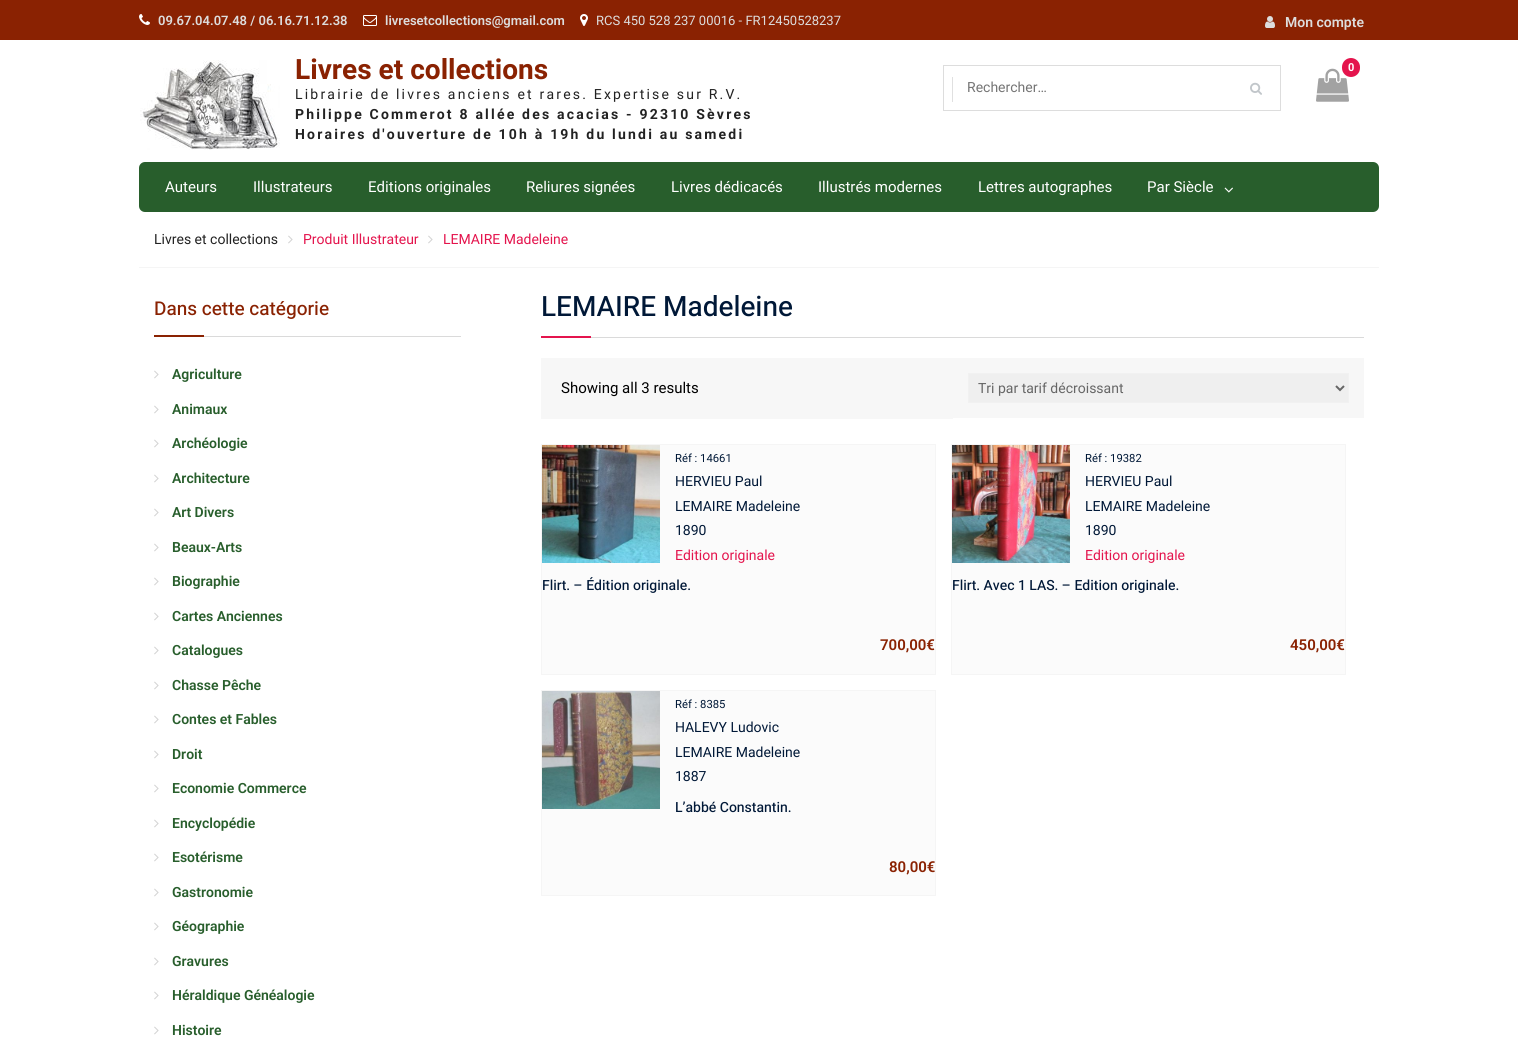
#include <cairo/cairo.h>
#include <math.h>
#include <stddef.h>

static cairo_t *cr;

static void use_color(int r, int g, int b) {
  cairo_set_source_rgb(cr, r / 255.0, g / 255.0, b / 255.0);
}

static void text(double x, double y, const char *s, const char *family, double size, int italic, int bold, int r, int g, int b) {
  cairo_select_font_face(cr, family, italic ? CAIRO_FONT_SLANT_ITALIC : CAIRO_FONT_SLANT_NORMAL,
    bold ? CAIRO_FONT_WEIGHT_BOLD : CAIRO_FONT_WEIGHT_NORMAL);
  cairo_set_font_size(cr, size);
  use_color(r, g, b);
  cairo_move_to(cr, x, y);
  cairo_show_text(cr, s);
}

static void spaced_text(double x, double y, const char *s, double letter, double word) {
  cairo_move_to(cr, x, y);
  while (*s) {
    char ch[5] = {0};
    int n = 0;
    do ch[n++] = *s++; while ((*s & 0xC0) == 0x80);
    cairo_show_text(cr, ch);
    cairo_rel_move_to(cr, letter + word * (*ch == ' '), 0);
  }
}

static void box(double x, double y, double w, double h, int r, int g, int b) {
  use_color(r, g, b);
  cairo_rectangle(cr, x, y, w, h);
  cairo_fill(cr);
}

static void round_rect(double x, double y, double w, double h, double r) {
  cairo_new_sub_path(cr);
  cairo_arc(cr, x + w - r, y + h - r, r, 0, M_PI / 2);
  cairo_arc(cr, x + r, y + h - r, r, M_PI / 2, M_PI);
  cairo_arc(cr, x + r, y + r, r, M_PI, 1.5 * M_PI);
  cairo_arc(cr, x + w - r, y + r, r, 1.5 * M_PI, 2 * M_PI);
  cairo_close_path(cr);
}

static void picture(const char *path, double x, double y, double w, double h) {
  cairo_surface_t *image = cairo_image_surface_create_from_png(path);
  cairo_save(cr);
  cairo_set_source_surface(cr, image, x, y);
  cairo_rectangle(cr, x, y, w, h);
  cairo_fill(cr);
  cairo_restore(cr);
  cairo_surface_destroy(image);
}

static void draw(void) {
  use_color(255, 255, 255);
  cairo_paint(cr);
  box(0, 0, 1518, 40, 138, 34, 2);
  picture("img_01.png", 139, 14, 11, 11);
  picture("img_02.png", 363, 15, 14, 11);
  picture("img_03.png", 580, 14, 8, 12);
  picture("img_04.png", 1265, 16, 10, 12);
  picture("img_05.png", 140, 60, 140, 90);
  picture("img_06.png", 1316, 68, 33, 34);
  use_color(228, 20, 77);
  round_rect(1342, 58, 18, 19, 9);
  cairo_fill(cr);
  cairo_rectangle(cr, 943.5, 65.5, 337, 45);
  use_color(221, 221, 221);
  cairo_set_line_width(cr, 1);
  cairo_stroke(cr);
  box(952, 77, 1, 25, 224, 224, 224);
  picture("img_07.png", 1250, 82, 12, 13);
  use_color(40, 94, 44);
  round_rect(139, 162, 1240, 50, 6);
  cairo_fill(cr);
  picture("img_08.png", 1224, 187, 9, 6);
  box(139, 267, 1240, 1, 245, 245, 245);
  picture("img_09.png", 288, 235, 5, 9);
  picture("img_09.png", 428, 235, 5, 9);
  box(204, 336, 257, 1, 218, 218, 218);
  box(154, 335, 50, 2, 138, 34, 2);
  picture("img_10.png", 154, 370, 5, 9);
  picture("img_10.png", 154, 405, 5, 9);
  picture("img_10.png", 154, 439, 5, 9);
  picture("img_10.png", 154, 474, 5, 9);
  picture("img_10.png", 154, 508, 5, 9);
  picture("img_10.png", 154, 543, 5, 9);
  picture("img_10.png", 154, 577, 5, 9);
  picture("img_10.png", 154, 612, 5, 9);
  picture("img_10.png", 154, 646, 5, 9);
  picture("img_10.png", 154, 681, 5, 9);
  picture("img_10.png", 154, 715, 5, 9);
  picture("img_10.png", 154, 750, 5, 9);
  picture("img_10.png", 154, 784, 5, 9);
  picture("img_10.png", 154, 819, 5, 9);
  picture("img_10.png", 154, 853, 5, 9);
  picture("img_10.png", 154, 888, 5, 9);
  picture("img_10.png", 154, 922, 5, 9);
  picture("img_10.png", 154, 957, 5, 9);
  picture("img_10.png", 154, 991, 5, 9);
  picture("img_10.png", 154, 1026, 5, 9);
  box(591, 337, 773, 1, 218, 218, 218);
  box(541, 336, 50, 2, 228, 20, 77);
  box(541, 358, 412, 61, 247, 247, 247);
  box(953, 358, 411, 60, 247, 247, 247);
  use_color(239, 239, 239);
  cairo_rectangle(cr, 968.5, 373.5, 380, 29);
  cairo_fill_preserve(cr);
  use_color(241, 241, 241);
  cairo_stroke(cr);
  cairo_new_path(cr);
  cairo_move_to(cr, 1336, 386);
  cairo_line_to(cr, 1340, 390);
  cairo_line_to(cr, 1344, 386);
  use_color(102, 102, 102);
  cairo_set_line_width(cr, 2);
  cairo_stroke(cr);
  use_color(251, 251, 251);
  cairo_rectangle(cr, 541.5, 444.5, 394, 230);
  cairo_fill_preserve(cr);
  use_color(245, 245, 245);
  cairo_set_line_width(cr, 1);
  cairo_stroke(cr);
  picture("img_11.png", 542, 445, 118, 118);
  use_color(251, 251, 251);
  cairo_rectangle(cr, 951.5, 444.5, 394, 230);
  cairo_fill_preserve(cr);
  use_color(245, 245, 245);
  cairo_stroke(cr);
  picture("img_12.png", 952, 445, 118, 118);
  use_color(251, 251, 251);
  cairo_rectangle(cr, 541.5, 690.5, 394, 205);
  cairo_fill_preserve(cr);
  use_color(245, 245, 245);
  cairo_stroke(cr);
  picture("img_13.png", 542, 691, 118, 118);
  text(158, 25, "09.67.04.07.48 / 06.16.71.12.38", "Roboto SemiBold", 13, 0, 0, 221, 221, 221);
  text(385, 25, "livresetcollections@gmail.com", "Roboto SemiBold", 13, 0, 0, 221, 221, 221);
  text(596, 25, "RCS 450 528 237 00016 - FR12450528237", "Roboto", 13, 0, 0, 221, 221, 221);
  text(1285, 27, "Mon compte", "Roboto SemiBold", 14, 0, 0, 221, 221, 221);
  text(295, 79, "Livres et collections", "Heebo", 28, 0, 1, 138, 34, 2);
  cairo_select_font_face(cr, "Roboto", CAIRO_FONT_SLANT_NORMAL, CAIRO_FONT_WEIGHT_NORMAL);
  cairo_set_font_size(cr, 14);
  use_color(34, 34, 34);
  spaced_text(295, 99, "Librairie de livres anciens et rares. Expertise sur R.V.", 2.2, 0);
  cairo_select_font_face(cr, "Roboto", CAIRO_FONT_SLANT_NORMAL, CAIRO_FONT_WEIGHT_BOLD);
  spaced_text(295, 119, "Philippe Commerot 8 allée des acacias - 92310 Sèvres", 2.2, 0);
  spaced_text(295, 139, "Horaires d'ouverture de 10h à 19h du lundi au samedi", 2.2, 0);
  text(1348, 71, "0", "Roboto", 11, 0, 1, 255, 255, 255);
  text(967, 92, "Rechercher…", "Roboto", 14, 0, 0, 117, 117, 117);
  text(165, 192, "Auteurs", "Heebo", 15, 0, 0, 255, 255, 255);
  text(253, 192, "Illustrateurs", "Heebo", 15, 0, 0, 255, 255, 255);
  text(368, 192, "Editions originales", "Heebo", 15, 0, 0, 255, 255, 255);
  text(526, 192, "Reliures signées", "Heebo", 15, 0, 0, 255, 255, 255);
  text(671, 192, "Livres dédicacés", "Heebo", 15, 0, 0, 255, 255, 255);
  text(818, 192, "Illustrés modernes", "Heebo", 15, 0, 0, 255, 255, 255);
  text(978, 192, "Lettres autographes", "Heebo", 15, 0, 0, 255, 255, 255);
  text(1147, 192, "Par Siècle", "Heebo", 15, 0, 0, 255, 255, 255);
  text(154, 244, "Livres et collections", "Roboto", 14, 0, 0, 34, 34, 34);
  text(303, 244, "Produit Illustrateur", "Roboto", 14, 0, 0, 228, 20, 77);
  text(443, 244, "LEMAIRE Madeleine", "Roboto", 14, 0, 0, 228, 20, 77);
  text(154, 315, "Dans cette catégorie", "Heebo Medium", 19, 0, 0, 138, 34, 2);
  text(172, 379, "Agriculture", "Roboto SemiBold", 14, 0, 0, 40, 94, 44);
  text(172, 414, "Animaux", "Roboto SemiBold", 14, 0, 0, 40, 94, 44);
  text(172, 448, "Archéologie", "Roboto SemiBold", 14, 0, 0, 40, 94, 44);
  text(172, 483, "Architecture", "Roboto SemiBold", 14, 0, 0, 40, 94, 44);
  text(172, 517, "Art Divers", "Roboto SemiBold", 14, 0, 0, 40, 94, 44);
  text(172, 552, "Beaux-Arts", "Roboto SemiBold", 14, 0, 0, 40, 94, 44);
  text(172, 586, "Biographie", "Roboto SemiBold", 14, 0, 0, 40, 94, 44);
  text(172, 621, "Cartes Anciennes", "Roboto SemiBold", 14, 0, 0, 40, 94, 44);
  text(172, 655, "Catalogues", "Roboto SemiBold", 14, 0, 0, 40, 94, 44);
  text(172, 690, "Chasse Pêche", "Roboto SemiBold", 14, 0, 0, 40, 94, 44);
  text(172, 724, "Contes et Fables", "Roboto SemiBold", 14, 0, 0, 40, 94, 44);
  text(172, 759, "Droit", "Roboto SemiBold", 14, 0, 0, 40, 94, 44);
  text(172, 793, "Economie Commerce", "Roboto SemiBold", 14, 0, 0, 40, 94, 44);
  text(172, 828, "Encyclopédie", "Roboto SemiBold", 14, 0, 0, 40, 94, 44);
  text(172, 862, "Esotérisme", "Roboto SemiBold", 14, 0, 0, 40, 94, 44);
  text(172, 897, "Gastronomie", "Roboto SemiBold", 14, 0, 0, 40, 94, 44);
  text(172, 931, "Géographie", "Roboto SemiBold", 14, 0, 0, 40, 94, 44);
  text(172, 966, "Gravures", "Roboto SemiBold", 14, 0, 0, 40, 94, 44);
  text(172, 1000, "Héraldique Généalogie", "Roboto SemiBold", 14, 0, 0, 40, 94, 44);
  text(172, 1035, "Histoire", "Roboto SemiBold", 14, 0, 0, 40, 94, 44);
  text(541, 316, "LEMAIRE Madeleine", "Heebo Medium", 28, 0, 0, 0, 24, 55);
  text(561, 393, "Showing all 3 results", "Roboto", 15, 0, 0, 0, 0, 0);
  text(978, 393, "Tri par tarif décroissant", "Roboto", 14, 0, 0, 102, 102, 102);
  text(675, 462, "Réf : 14661", "Roboto", 11.25, 0, 0, 0, 24, 55);
  text(675, 486, "HERVIEU Paul", "Roboto", 14, 0, 0, 0, 24, 55);
  text(675, 511, "LEMAIRE Madeleine", "Roboto", 14, 0, 0, 0, 24, 55);
  text(675, 535, "1890", "Roboto", 14, 0, 0, 0, 24, 55);
  text(675, 560, "Edition originale", "Roboto", 14, 0, 0, 228, 20, 77);
  text(542, 590, "Flirt. – Édition originale.", "Heebo Medium", 14, 0, 0, 0, 24, 55);
  text(880, 650, "700,00€", "Roboto SemiBold", 15, 0, 0, 138, 34, 2);
  text(1085, 462, "Réf : 19382", "Roboto", 11.25, 0, 0, 0, 24, 55);
  text(1085, 486, "HERVIEU Paul", "Roboto", 14, 0, 0, 0, 24, 55);
  text(1085, 511, "LEMAIRE Madeleine", "Roboto", 14, 0, 0, 0, 24, 55);
  text(1085, 535, "1890", "Roboto", 14, 0, 0, 0, 24, 55);
  text(1085, 560, "Edition originale", "Roboto", 14, 0, 0, 228, 20, 77);
  text(952, 590, "Flirt. Avec 1 LAS. – Edition originale.", "Heebo Medium", 14, 0, 0, 0, 24, 55);
  text(1290, 650, "450,00€", "Roboto SemiBold", 15, 0, 0, 138, 34, 2);
  text(675, 708, "Réf : 8385", "Roboto", 11.25, 0, 0, 0, 24, 55);
  text(675, 732, "HALEVY Ludovic", "Roboto", 14, 0, 0, 0, 24, 55);
  text(675, 757, "LEMAIRE Madeleine", "Roboto", 14, 0, 0, 0, 24, 55);
  text(675, 781, "1887", "Roboto", 14, 0, 0, 0, 24, 55);
  text(675, 812, "L’abbé Constantin.", "Heebo Medium", 14, 0, 0, 0, 24, 55);
  text(889, 872, "80,00€", "Roboto SemiBold", 15, 0, 0, 138, 34, 2);
}

int main(void) {
  cairo_surface_t *surface = cairo_image_surface_create(CAIRO_FORMAT_RGB24, 1518, 1058);
  cr = cairo_create(surface);
  cairo_font_options_t *options = cairo_font_options_create();
  cairo_font_options_set_hint_metrics(options, CAIRO_HINT_METRICS_OFF);
  cairo_font_options_set_hint_style(options, CAIRO_HINT_STYLE_NONE);
  cairo_set_font_options(cr, options);
  cairo_set_miter_limit(cr, 4);
  draw();
  cairo_surface_write_to_png(surface, "out.png");
  cairo_font_options_destroy(options);
  cairo_destroy(cr);
  cairo_surface_destroy(surface);
  return 0;
}
